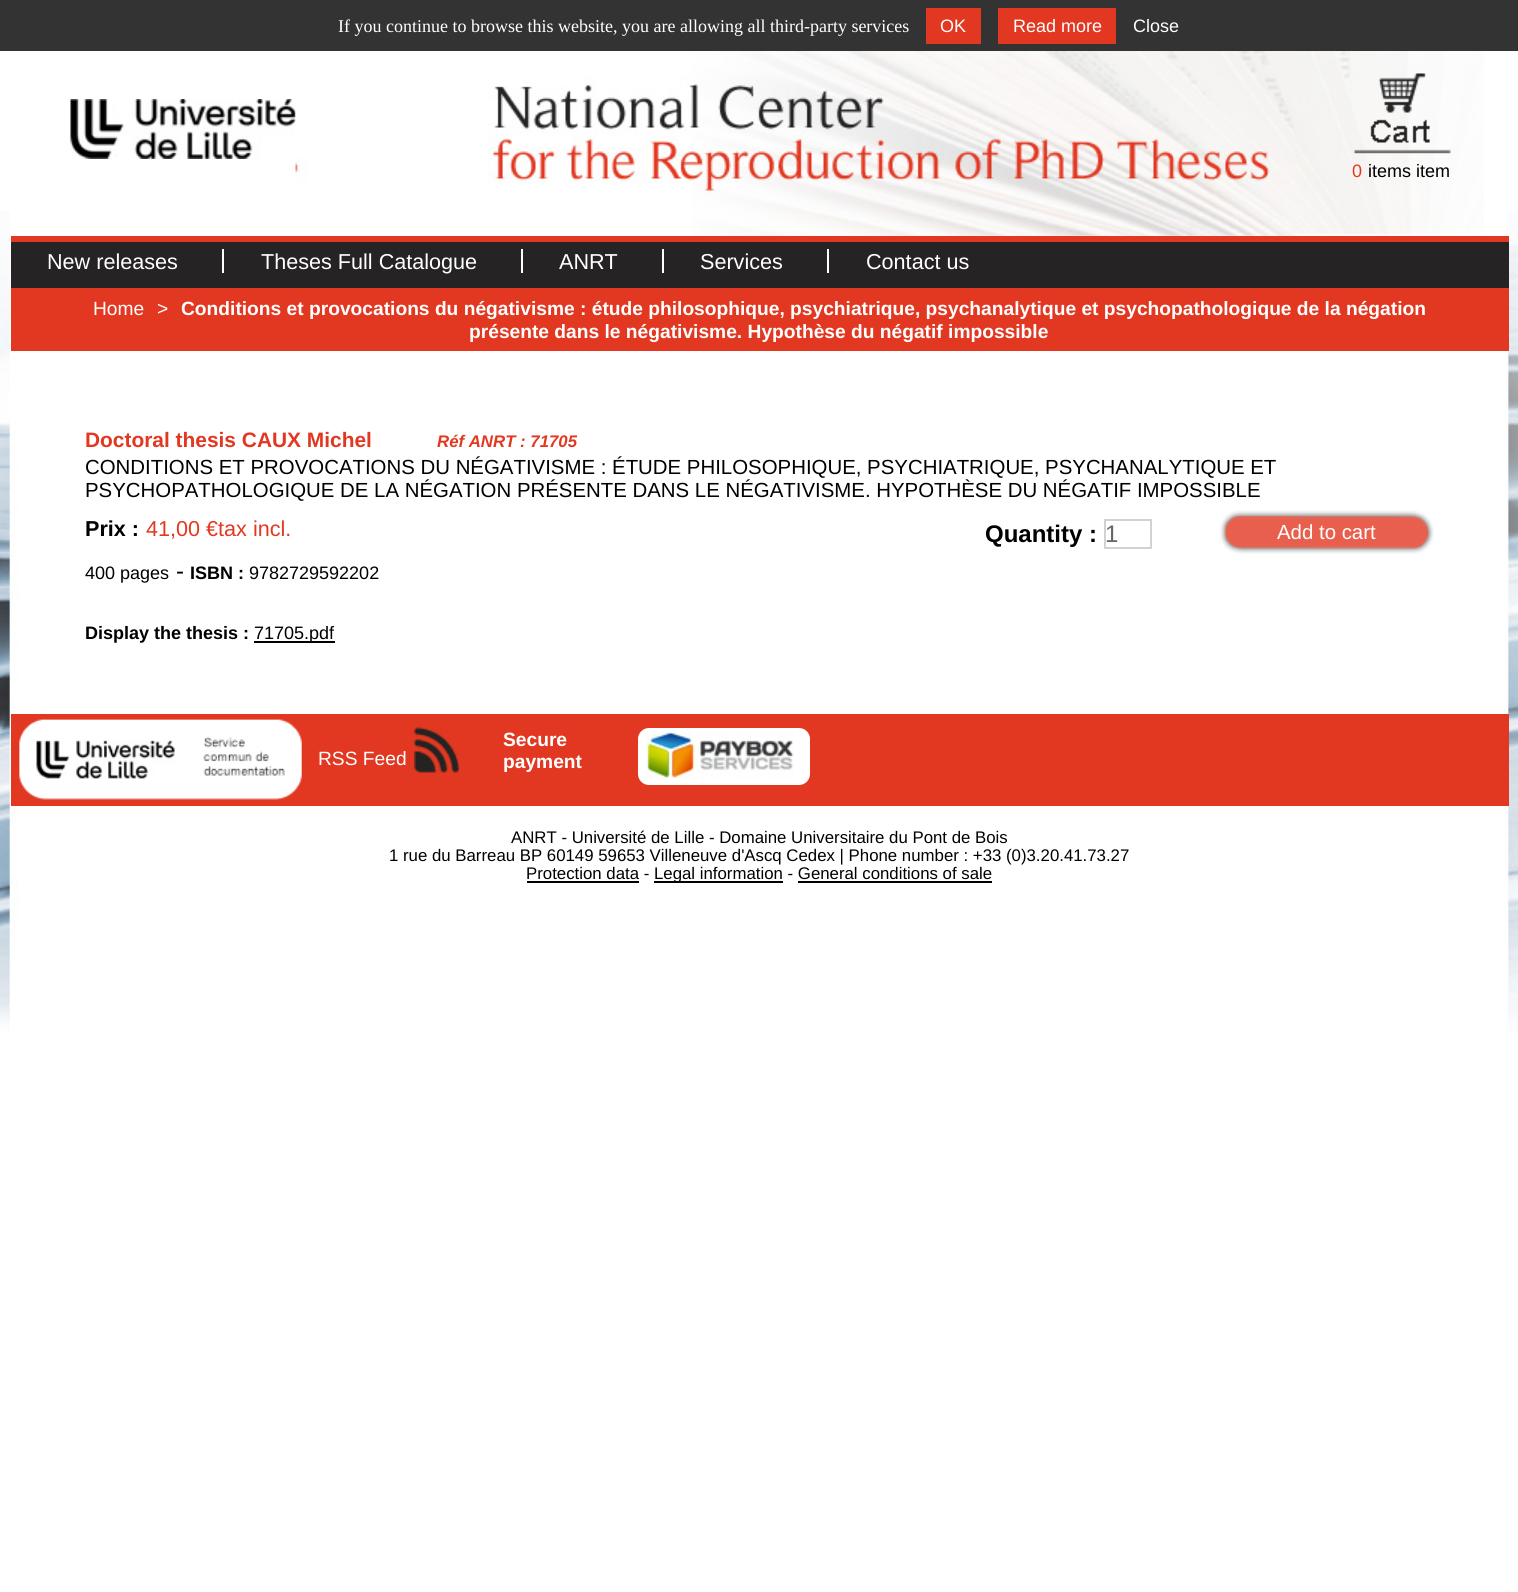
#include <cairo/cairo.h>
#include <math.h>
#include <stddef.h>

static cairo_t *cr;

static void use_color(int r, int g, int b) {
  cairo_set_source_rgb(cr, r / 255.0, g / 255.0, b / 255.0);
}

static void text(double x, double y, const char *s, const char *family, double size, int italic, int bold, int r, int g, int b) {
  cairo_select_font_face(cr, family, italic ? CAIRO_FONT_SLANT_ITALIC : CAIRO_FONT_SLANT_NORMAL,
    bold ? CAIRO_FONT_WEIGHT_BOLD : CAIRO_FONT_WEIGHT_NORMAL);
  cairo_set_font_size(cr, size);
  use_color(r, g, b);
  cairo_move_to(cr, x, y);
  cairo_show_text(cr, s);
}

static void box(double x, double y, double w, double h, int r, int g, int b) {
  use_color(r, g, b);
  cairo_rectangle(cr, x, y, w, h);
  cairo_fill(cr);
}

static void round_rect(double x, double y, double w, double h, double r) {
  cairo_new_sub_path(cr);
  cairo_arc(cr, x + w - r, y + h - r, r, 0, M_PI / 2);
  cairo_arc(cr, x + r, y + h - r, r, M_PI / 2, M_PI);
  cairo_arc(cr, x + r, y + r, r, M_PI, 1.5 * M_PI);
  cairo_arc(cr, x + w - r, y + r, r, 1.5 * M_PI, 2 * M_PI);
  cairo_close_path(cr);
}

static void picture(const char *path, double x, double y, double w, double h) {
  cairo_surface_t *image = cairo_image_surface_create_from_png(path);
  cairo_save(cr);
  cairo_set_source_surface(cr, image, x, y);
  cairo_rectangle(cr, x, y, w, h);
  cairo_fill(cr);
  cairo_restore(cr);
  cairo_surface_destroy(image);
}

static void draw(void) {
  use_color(255, 255, 255);
  cairo_paint(cr);
  box(0, 0, 1518, 51, 51, 51, 51);
  box(926, 8, 55, 36, 226, 56, 33);
  box(998, 8, 118, 36, 226, 56, 33);
  picture("img_01.png", 0, 211, 1518, 821);
  picture("img_02.png", 70, 99, 226, 60);
  picture("img_03.png", 295, 51, 1001, 185);
  picture("img_04.png", 1295, 51, 189, 184);
  picture("img_05.png", 1354, 73, 97, 81);
  box(11, 242, 1498, 46, 37, 35, 35);
  box(11, 236, 1498, 6, 226, 56, 33);
  box(222, 249, 2, 24, 255, 255, 255);
  box(521, 249, 2, 24, 255, 255, 255);
  box(662, 249, 2, 24, 255, 255, 255);
  box(827, 249, 2, 24, 255, 255, 255);
  box(11, 288, 1498, 63, 226, 56, 33);
  cairo_rectangle(cr, 1105, 520, 46, 28);
  use_color(209, 210, 211);
  cairo_stroke(cr);
  picture("img_06.png", 1220, 510, 214, 44);
  box(254, 641, 81, 2, 0, 0, 0);
  box(11, 714, 1498, 92, 226, 56, 33);
  picture("img_07.png", 19, 719, 283, 81);
  picture("img_08.png", 414, 727, 45, 46);
  use_color(255, 255, 255);
  round_rect(638, 728, 172, 57, 11);
  cairo_fill(cr);
  picture("img_09.png", 645, 732, 149, 47);
  box(527, 881, 112, 2, 0, 0, 0);
  box(654, 881, 129, 2, 0, 0, 0);
  box(798, 881, 194, 2, 0, 0, 0);
  text(338, 32, "If you continue to browse this website, you are allowing all third-party services", "Liberation Serif", 18, 0, 0, 255, 255, 255);
  text(940, 32, "OK", "Liberation Sans", 18, 0, 0, 255, 255, 255);
  text(1013, 32, "Read more", "Liberation Sans", 18, 0, 0, 255, 255, 255);
  text(1133, 32, "Close", "Liberation Sans", 18, 0, 0, 255, 255, 255);
  text(1352, 177, "0", "Liberation Sans", 18, 0, 0, 226, 56, 33);
  text(1368, 177, "items item", "Liberation Sans", 18, 0, 0, 0, 0, 0);
  text(47, 269, "New releases", "Liberation Sans", 21.6, 0, 0, 255, 255, 255);
  text(261, 269, "Theses Full Catalogue", "Liberation Sans", 21.6, 0, 0, 255, 255, 255);
  text(559, 269, "ANRT", "Liberation Sans", 21.6, 0, 0, 255, 255, 255);
  text(700, 269, "Services", "Liberation Sans", 21.6, 0, 0, 255, 255, 255);
  text(866, 269, "Contact us", "Liberation Sans", 21.6, 0, 0, 255, 255, 255);
  text(93, 315, "Home", "Liberation Sans", 19.2, 0, 0, 255, 255, 255);
  text(157, 315, ">", "Liberation Sans", 19.2, 0, 0, 255, 255, 255);
  text(181, 315, "Conditions et provocations du négativisme : étude philosophique, psychiatrique, psychanalytique et psychopathologique de la négation", "Liberation Sans", 19.2, 0, 1, 255, 255, 255);
  text(469, 338, "présente dans le négativisme. Hypothèse du négatif impossible", "Liberation Sans", 19.2, 0, 1, 255, 255, 255);
  text(85, 447, "Doctoral thesis CAUX Michel", "Liberation Sans", 20.9, 0, 1, 226, 56, 33);
  text(437, 447, "Réf ANRT : 71705", "Liberation Sans", 16.8, 1, 1, 226, 56, 33);
  text(85, 474, "CONDITIONS ET PROVOCATIONS DU NÉGATIVISME : ÉTUDE PHILOSOPHIQUE, PSYCHIATRIQUE, PSYCHANALYTIQUE ET", "Liberation Sans", 20.4, 0, 0, 0, 0, 0);
  text(85, 497, "PSYCHOPATHOLOGIQUE DE LA NÉGATION PRÉSENTE DANS LE NÉGATIVISME. HYPOTHÈSE DU NÉGATIF IMPOSSIBLE", "Liberation Sans", 20.4, 0, 0, 0, 0, 0);
  text(85, 536, "Prix :", "Liberation Sans", 21.6, 0, 1, 0, 0, 0);
  text(146, 536, "41,00 €tax incl.", "Liberation Sans", 21.6, 0, 0, 226, 56, 33);
  text(985, 542, "Quantity :", "Liberation Sans", 24, 0, 1, 0, 0, 0);
  text(1105, 542, "1", "Liberation Sans", 24, 0, 0, 102, 102, 102);
  text(1277, 539, "Add to cart", "Liberation Sans", 20.4, 0, 0, 255, 255, 255);
  text(85, 579, "400 pages", "Liberation Sans", 18, 0, 0, 0, 0, 0);
  text(176, 579, "-", "Liberation Sans", 24, 0, 0, 0, 0, 0);
  text(190, 579, "ISBN :", "Liberation Sans", 18, 0, 1, 0, 0, 0);
  text(249, 579, "9782729592202", "Liberation Sans", 18, 0, 0, 0, 0, 0);
  text(85, 639, "Display the thesis :", "Liberation Sans", 18, 0, 1, 0, 0, 0);
  text(254, 639, "71705.pdf", "Liberation Sans", 18, 0, 0, 0, 0, 0);
  text(318, 765, "RSS Feed", "Liberation Sans", 19.2, 0, 0, 255, 255, 255);
  text(503, 746, "Secure", "Liberation Sans", 19.2, 0, 1, 255, 255, 255);
  text(503, 768, "payment", "Liberation Sans", 19.2, 0, 1, 255, 255, 255);
  text(511, 843, "ANRT - Université de Lille - Domaine Universitaire du Pont de Bois", "Liberation Sans", 16.8, 0, 0, 0, 0, 0);
  text(389, 861, "1 rue du Barreau BP 60149 59653 Villeneuve d'Ascq Cedex | Phone number : +33 (0)3.20.41.73.27", "Liberation Sans", 16.8, 0, 0, 0, 0, 0);
  text(526, 879, "Protection data -", "Liberation Sans", 16.8, 0, 0, 0, 0, 0);
  text(654, 879, "Legal information - General conditions of sale", "Liberation Sans", 16.8, 0, 0, 0, 0, 0);
}

int main(void) {
  cairo_surface_t *surface = cairo_image_surface_create(CAIRO_FORMAT_RGB24, 1518, 1592);
  cr = cairo_create(surface);
  cairo_font_options_t *options = cairo_font_options_create();
  cairo_font_options_set_hint_metrics(options, CAIRO_HINT_METRICS_OFF);
  cairo_font_options_set_hint_style(options, CAIRO_HINT_STYLE_NONE);
  cairo_set_font_options(cr, options);
  cairo_set_miter_limit(cr, 4);
  draw();
  cairo_surface_write_to_png(surface, "out.png");
  cairo_font_options_destroy(options);
  cairo_destroy(cr);
  cairo_surface_destroy(surface);
  return 0;
}
